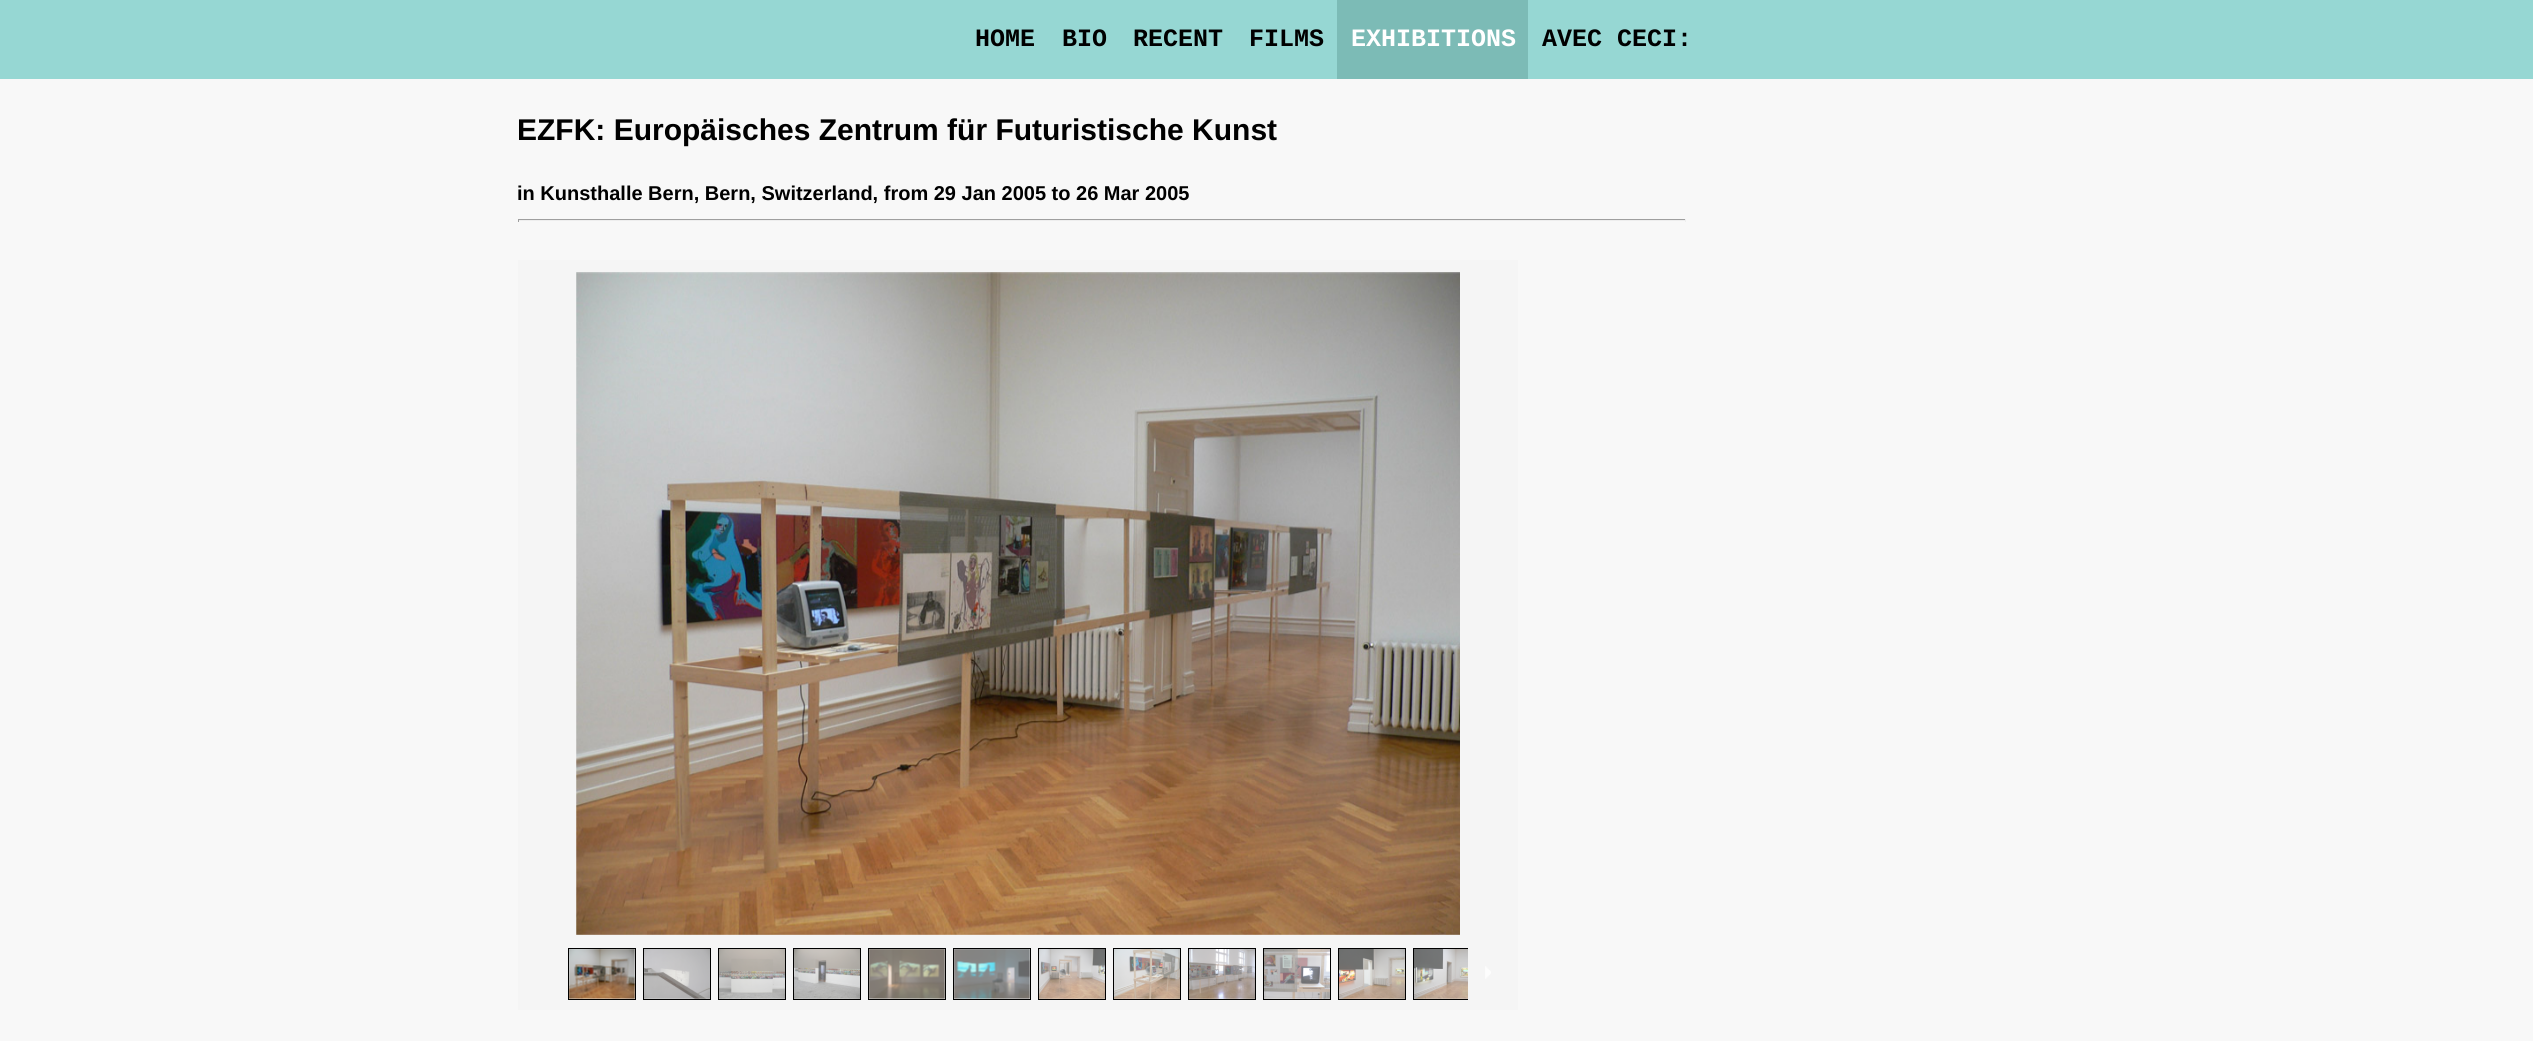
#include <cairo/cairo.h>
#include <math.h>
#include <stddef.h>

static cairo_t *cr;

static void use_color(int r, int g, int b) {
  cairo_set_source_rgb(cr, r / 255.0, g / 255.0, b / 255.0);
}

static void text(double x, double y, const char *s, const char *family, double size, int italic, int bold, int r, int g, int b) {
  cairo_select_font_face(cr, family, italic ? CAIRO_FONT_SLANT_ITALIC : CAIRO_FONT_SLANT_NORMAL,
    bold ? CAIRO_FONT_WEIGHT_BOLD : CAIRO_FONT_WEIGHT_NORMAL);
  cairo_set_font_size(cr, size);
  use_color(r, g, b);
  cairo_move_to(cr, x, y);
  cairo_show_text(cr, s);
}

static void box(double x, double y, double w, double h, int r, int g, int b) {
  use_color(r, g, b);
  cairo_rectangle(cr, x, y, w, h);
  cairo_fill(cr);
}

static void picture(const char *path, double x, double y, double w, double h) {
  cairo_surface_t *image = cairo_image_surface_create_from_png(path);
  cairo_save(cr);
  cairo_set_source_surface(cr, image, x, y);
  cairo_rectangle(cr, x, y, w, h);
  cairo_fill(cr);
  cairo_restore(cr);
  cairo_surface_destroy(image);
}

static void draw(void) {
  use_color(150, 215, 211);
  cairo_paint(cr);
  box(1337, 0, 191, 79, 124, 187, 182);
  box(0, 79, 2533, 962, 248, 248, 248);
  box(518, 219, 1168, 1, 159, 159, 159);
  box(1685, 219, 1, 3, 238, 238, 238);
  box(518, 220, 1168, 1, 238, 238, 238);
  box(518, 219, 1, 3, 159, 159, 159);
  box(518, 260, 1000, 750, 245, 245, 245);
  picture("img_01.png", 576, 272, 884, 663);
  use_color(255, 255, 255);
  cairo_rectangle(cr, 568.5, 948.5, 67, 51);
  cairo_fill_preserve(cr);
  use_color(0, 0, 0);
  cairo_set_line_width(cr, 1);
  cairo_stroke(cr);
  picture("img_02.png", 569, 949, 66, 50);
  use_color(255, 255, 255);
  cairo_rectangle(cr, 643.5, 948.5, 67, 51);
  cairo_fill_preserve(cr);
  use_color(0, 0, 0);
  cairo_stroke(cr);
  picture("img_03.png", 644, 949, 66, 50);
  use_color(255, 255, 255);
  cairo_rectangle(cr, 718.5, 948.5, 67, 51);
  cairo_fill_preserve(cr);
  use_color(0, 0, 0);
  cairo_stroke(cr);
  picture("img_04.png", 719, 949, 66, 50);
  use_color(255, 255, 255);
  cairo_rectangle(cr, 793.5, 948.5, 67, 51);
  cairo_fill_preserve(cr);
  use_color(0, 0, 0);
  cairo_stroke(cr);
  picture("img_05.png", 794, 949, 66, 50);
  use_color(255, 255, 255);
  cairo_rectangle(cr, 868.5, 948.5, 77, 51);
  cairo_fill_preserve(cr);
  use_color(0, 0, 0);
  cairo_stroke(cr);
  picture("img_06.png", 869, 949, 76, 50);
  use_color(255, 255, 255);
  cairo_rectangle(cr, 953.5, 948.5, 77, 51);
  cairo_fill_preserve(cr);
  use_color(0, 0, 0);
  cairo_stroke(cr);
  picture("img_07.png", 954, 949, 76, 50);
  use_color(255, 255, 255);
  cairo_rectangle(cr, 1038.5, 948.5, 67, 51);
  cairo_fill_preserve(cr);
  use_color(0, 0, 0);
  cairo_stroke(cr);
  picture("img_08.png", 1039, 949, 66, 50);
  use_color(255, 255, 255);
  cairo_rectangle(cr, 1113.5, 948.5, 67, 51);
  cairo_fill_preserve(cr);
  use_color(0, 0, 0);
  cairo_stroke(cr);
  picture("img_09.png", 1114, 949, 66, 50);
  use_color(255, 255, 255);
  cairo_rectangle(cr, 1188.5, 948.5, 67, 51);
  cairo_fill_preserve(cr);
  use_color(0, 0, 0);
  cairo_stroke(cr);
  picture("img_10.png", 1189, 949, 66, 50);
  use_color(255, 255, 255);
  cairo_rectangle(cr, 1263.5, 948.5, 67, 51);
  cairo_fill_preserve(cr);
  use_color(0, 0, 0);
  cairo_stroke(cr);
  picture("img_11.png", 1264, 949, 66, 50);
  use_color(255, 255, 255);
  cairo_rectangle(cr, 1338.5, 948.5, 67, 51);
  cairo_fill_preserve(cr);
  use_color(0, 0, 0);
  cairo_stroke(cr);
  picture("img_12.png", 1339, 949, 66, 50);
  box(1414, 949, 54, 50, 255, 255, 255);
  cairo_save(cr);
  cairo_rectangle(cr, 568, 948, 900, 52);
  cairo_clip(cr);
  cairo_rectangle(cr, 1413.5, 948.5, 67, 51);
  use_color(0, 0, 0);
  cairo_stroke(cr);
  cairo_restore(cr);
  picture("img_13.png", 1414, 949, 54, 50);
  picture("img_14.png", 1485, 966, 6, 13);
  text(975, 46, "HOME", "Liberation Mono", 25, 0, 1, 0, 0, 0);
  text(1062, 46, "BIO", "Liberation Mono", 25, 0, 1, 0, 0, 0);
  text(1133, 46, "RECENT", "Liberation Mono", 25, 0, 1, 0, 0, 0);
  text(1249, 46, "FILMS", "Liberation Mono", 25, 0, 1, 0, 0, 0);
  text(1351, 46, "EXHIBITIONS", "Liberation Mono", 25, 0, 1, 255, 255, 255);
  text(1542, 46, "AVEC CECI:", "Liberation Mono", 25, 0, 1, 0, 0, 0);
  text(517, 140, "EZFK: Europäisches Zentrum für Futuristische Kunst", "Liberation Sans", 30, 0, 1, 0, 0, 0);
  text(517, 200, "in Kunsthalle Bern, Bern, Switzerland, from 29 Jan 2005 to 26 Mar 2005", "Liberation Sans", 20, 0, 1, 0, 0, 0);
}

int main(void) {
  cairo_surface_t *surface = cairo_image_surface_create(CAIRO_FORMAT_RGB24, 2533, 1041);
  cr = cairo_create(surface);
  cairo_font_options_t *options = cairo_font_options_create();
  cairo_font_options_set_hint_metrics(options, CAIRO_HINT_METRICS_OFF);
  cairo_font_options_set_hint_style(options, CAIRO_HINT_STYLE_NONE);
  cairo_set_font_options(cr, options);
  cairo_set_miter_limit(cr, 4);
  draw();
  cairo_surface_write_to_png(surface, "out.png");
  cairo_font_options_destroy(options);
  cairo_destroy(cr);
  cairo_surface_destroy(surface);
  return 0;
}
